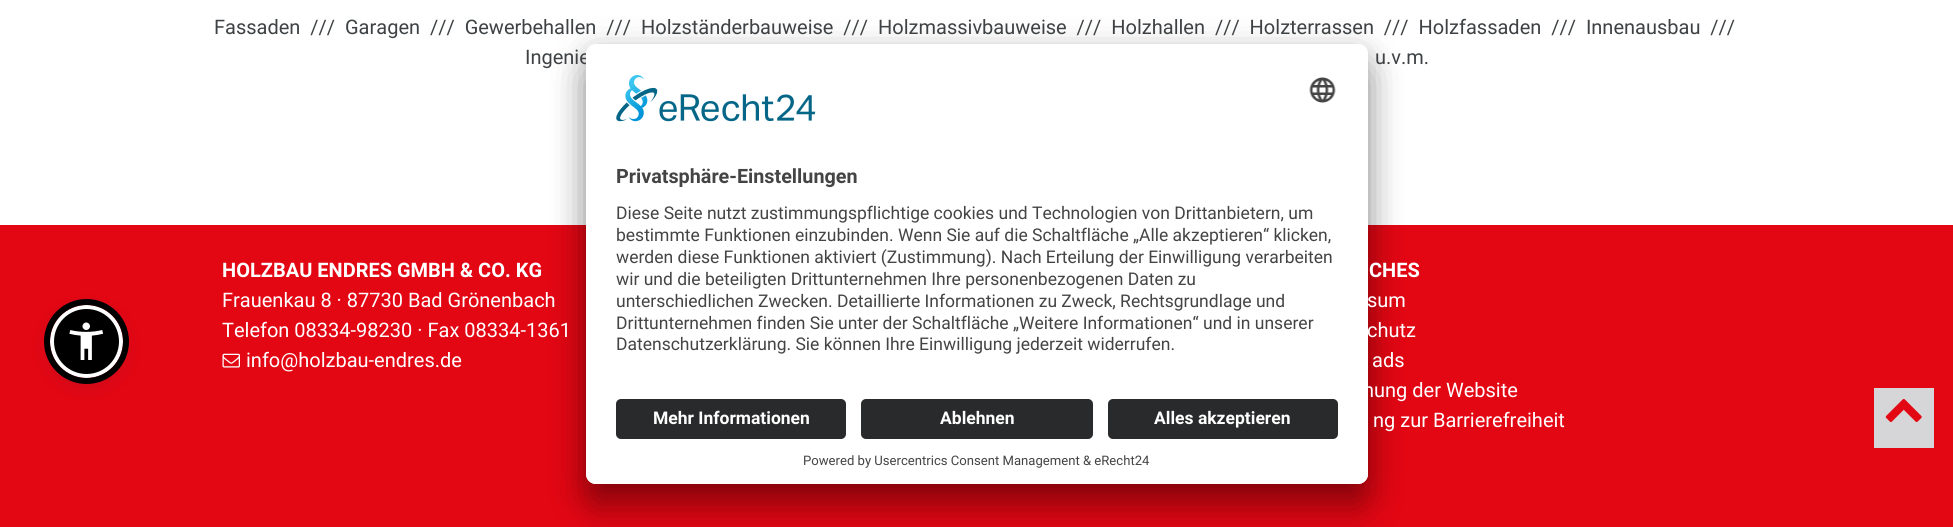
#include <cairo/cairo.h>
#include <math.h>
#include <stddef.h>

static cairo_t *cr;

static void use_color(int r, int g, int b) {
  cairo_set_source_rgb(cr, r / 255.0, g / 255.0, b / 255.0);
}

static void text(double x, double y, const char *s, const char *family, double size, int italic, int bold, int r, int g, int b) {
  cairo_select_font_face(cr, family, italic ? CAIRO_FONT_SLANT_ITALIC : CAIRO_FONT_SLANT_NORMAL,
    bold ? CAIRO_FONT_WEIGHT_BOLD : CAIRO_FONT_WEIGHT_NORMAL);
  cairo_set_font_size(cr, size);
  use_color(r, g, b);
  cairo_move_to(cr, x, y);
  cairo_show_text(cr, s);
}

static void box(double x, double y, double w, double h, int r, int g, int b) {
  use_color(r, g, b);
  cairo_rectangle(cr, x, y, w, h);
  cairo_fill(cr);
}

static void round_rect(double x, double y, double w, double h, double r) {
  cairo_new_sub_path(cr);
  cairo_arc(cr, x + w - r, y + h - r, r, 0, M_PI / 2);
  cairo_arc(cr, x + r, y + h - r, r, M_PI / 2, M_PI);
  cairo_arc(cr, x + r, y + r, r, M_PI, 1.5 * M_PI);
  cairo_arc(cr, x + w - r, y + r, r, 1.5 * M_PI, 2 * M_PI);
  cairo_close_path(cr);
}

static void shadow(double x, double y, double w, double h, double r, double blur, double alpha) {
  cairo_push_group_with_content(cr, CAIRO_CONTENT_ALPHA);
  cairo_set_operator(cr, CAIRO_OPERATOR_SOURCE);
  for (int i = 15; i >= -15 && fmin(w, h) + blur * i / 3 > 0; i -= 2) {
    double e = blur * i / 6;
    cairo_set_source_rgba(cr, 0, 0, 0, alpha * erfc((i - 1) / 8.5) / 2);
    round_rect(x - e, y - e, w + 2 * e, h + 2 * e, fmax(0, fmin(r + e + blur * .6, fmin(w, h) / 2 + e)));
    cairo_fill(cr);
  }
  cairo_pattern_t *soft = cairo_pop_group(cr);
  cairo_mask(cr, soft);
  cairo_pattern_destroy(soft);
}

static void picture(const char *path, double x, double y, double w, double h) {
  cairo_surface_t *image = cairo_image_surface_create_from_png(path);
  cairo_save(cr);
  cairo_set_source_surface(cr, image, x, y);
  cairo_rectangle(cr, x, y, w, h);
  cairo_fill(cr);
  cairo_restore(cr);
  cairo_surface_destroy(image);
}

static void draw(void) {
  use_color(255, 255, 255);
  cairo_paint(cr);
  box(0, 225, 1953, 302, 227, 6, 19);
  use_color(0, 0, 0);
  shadow(586, 69, 782, 440, 10, 17.5, 0.3);
  shadow(586, 50, 782, 440, 10, 16, 0.22);
  use_color(93, 100, 148);
  shadow(50, 308, 73, 72, 36, 2.5, 0.2);
  use_color(37, 44, 97);
  shadow(50, 311, 73, 73, 36.5, 9.5, 0.15);
  use_color(0, 0, 0);
  cairo_arc(cr, 86.5, 341.5, 34.5, 0, 2 * M_PI);
  cairo_fill_preserve(cr);
  use_color(255, 255, 255);
  cairo_set_line_width(cr, 4);
  cairo_stroke(cr);
  cairo_arc(cr, 86.5, 341.5, 39.5, 0, 2 * M_PI);
  use_color(0, 0, 0);
  cairo_set_line_width(cr, 6);
  cairo_stroke(cr);
  picture("img_03.png", 69, 322, 35, 38);
  picture("img_04.png", 222, 353, 18, 15);
  box(1874, 388, 60, 60, 214, 214, 216);
  picture("img_05.png", 1885, 398, 37, 24);
  text(214, 34, "Fassaden  ///  Garagen  ///  Gewerbehallen  ///  Holzständerbauweise  ///  Holzmassivbauweise  ///  Holzhallen  ///  Holzterrassen  ///  Holzfassaden  ///  Innenausbau  ///", "Roboto", 20, 0, 0, 62, 66, 68);
  text(525, 64, "Ingenie", "Roboto", 20, 0, 0, 62, 66, 68);
  text(1375, 64, "u.v.m.", "Roboto", 20, 0, 0, 62, 66, 68);
  use_color(255, 255, 255);
  round_rect(586, 44, 782, 440, 10);
  cairo_fill(cr);
  cairo_save(cr);
  round_rect(586, 44, 782, 440, 10);
  cairo_clip(cr);
  cairo_new_path(cr);
  cairo_move_to(cr, 596, 44);
  cairo_line_to(cr, 1358, 44);
  cairo_curve_to(cr, 1363.5, 44, 1368, 48.5, 1368, 54);
  cairo_line_to(cr, 1368, 389);
  cairo_line_to(cr, 586, 389);
  cairo_line_to(cr, 586, 54);
  cairo_curve_to(cr, 586, 48.5, 590.5, 44, 596, 44);
  cairo_close_path(cr);
  cairo_clip(cr);
  box(586, 45, 782, 344, 255, 255, 255);
  cairo_restore(cr);
  picture("img_01.png", 616, 75, 200, 47);
  picture("img_02.png", 1309, 77, 27, 26);
  text(616, 183, "Privatsphäre-Einstellungen", "Roboto", 19.75, 0, 1, 68, 68, 68);
  text(616, 219, "Diese Seite nutzt zustimmungspflichtige cookies und Technologien von Drittanbietern, um", "Roboto", 17.5, 0, 0, 68, 68, 68);
  text(616, 241, "bestimmte Funktionen einzubinden. Wenn Sie auf die Schaltfläche „Alle akzeptieren“ klicken,", "Roboto", 17.5, 0, 0, 68, 68, 68);
  text(616, 263, "werden diese Funktionen aktiviert (Zustimmung). Nach Erteilung der Einwilligung verarbeiten", "Roboto", 17.5, 0, 0, 68, 68, 68);
  text(616, 285, "wir und die beteiligten Drittunternehmen Ihre personenbezogenen Daten zu", "Roboto", 17.5, 0, 0, 68, 68, 68);
  text(616, 307, "unterschiedlichen Zwecken. Detaillierte Informationen zu Zweck, Rechtsgrundlage und", "Roboto", 17.5, 0, 0, 68, 68, 68);
  text(616, 329, "Drittunternehmen finden Sie unter der Schaltfläche „Weitere Informationen“ und in unserer", "Roboto", 17.5, 0, 0, 68, 68, 68);
  text(616, 350, "Datenschutzerklärung. Sie können Ihre Einwilligung jederzeit widerrufen.", "Roboto", 17.5, 0, 0, 68, 68, 68);
  use_color(255, 255, 255);
  cairo_new_path(cr);
  cairo_move_to(cr, 586, 389);
  cairo_line_to(cr, 1368, 389);
  cairo_line_to(cr, 1368, 474);
  cairo_curve_to(cr, 1368, 479.5, 1363.5, 484, 1358, 484);
  cairo_line_to(cr, 596, 484);
  cairo_curve_to(cr, 590.5, 484, 586, 479.5, 586, 474);
  cairo_close_path(cr);
  cairo_fill(cr);
  use_color(41, 42, 43);
  round_rect(616, 399, 230, 40, 5);
  cairo_fill(cr);
  text(653, 424, "Mehr Informationen", "Roboto", 17.5, 0, 1, 255, 255, 255);
  use_color(41, 42, 43);
  round_rect(861, 399, 232, 40, 5);
  cairo_fill(cr);
  text(940, 424, "Ablehnen", "Roboto", 17.5, 0, 1, 255, 255, 255);
  use_color(41, 42, 43);
  round_rect(1108, 399, 230, 40, 5);
  cairo_fill(cr);
  text(1154, 424, "Alles akzeptieren", "Roboto", 17.5, 0, 1, 255, 255, 255);
  text(803, 465, "Powered by Usercentrics Consent Management & eRecht24", "Roboto", 13.1, 0, 0, 68, 68, 68);
  text(222, 277, "HOLZBAU ENDRES GMBH & CO. KG", "Roboto", 20, 0, 1, 255, 255, 255);
  text(222, 307, "Frauenkau 8 · 87730 Bad Grönenbach", "Roboto", 20, 0, 0, 255, 255, 255);
  text(222, 337, "Telefon 08334-98230 · Fax 08334-1361", "Roboto", 20, 0, 0, 255, 255, 255);
  text(246, 367, "info@holzbau-endres.de", "Roboto", 20, 0, 0, 255, 255, 255);
  text(1369, 277, "CHES", "Roboto", 20, 0, 1, 255, 255, 255);
  text(1367, 307, "sum", "Roboto", 20, 0, 0, 255, 255, 255);
  text(1367, 337, "chutz", "Roboto", 20, 0, 0, 255, 255, 255);
  text(1372, 367, "ads", "Roboto", 20, 0, 0, 255, 255, 255);
  text(1363, 397, "nung der Website", "Roboto", 20, 0, 0, 255, 255, 255);
  text(1373, 427, "ng zur Barrierefreiheit", "Roboto", 20, 0, 0, 255, 255, 255);
}

int main(void) {
  cairo_surface_t *surface = cairo_image_surface_create(CAIRO_FORMAT_RGB24, 1953, 527);
  cr = cairo_create(surface);
  cairo_font_options_t *options = cairo_font_options_create();
  cairo_font_options_set_hint_metrics(options, CAIRO_HINT_METRICS_OFF);
  cairo_font_options_set_hint_style(options, CAIRO_HINT_STYLE_NONE);
  cairo_set_font_options(cr, options);
  cairo_set_miter_limit(cr, 4);
  draw();
  cairo_surface_write_to_png(surface, "out.png");
  cairo_font_options_destroy(options);
  cairo_destroy(cr);
  cairo_surface_destroy(surface);
  return 0;
}
